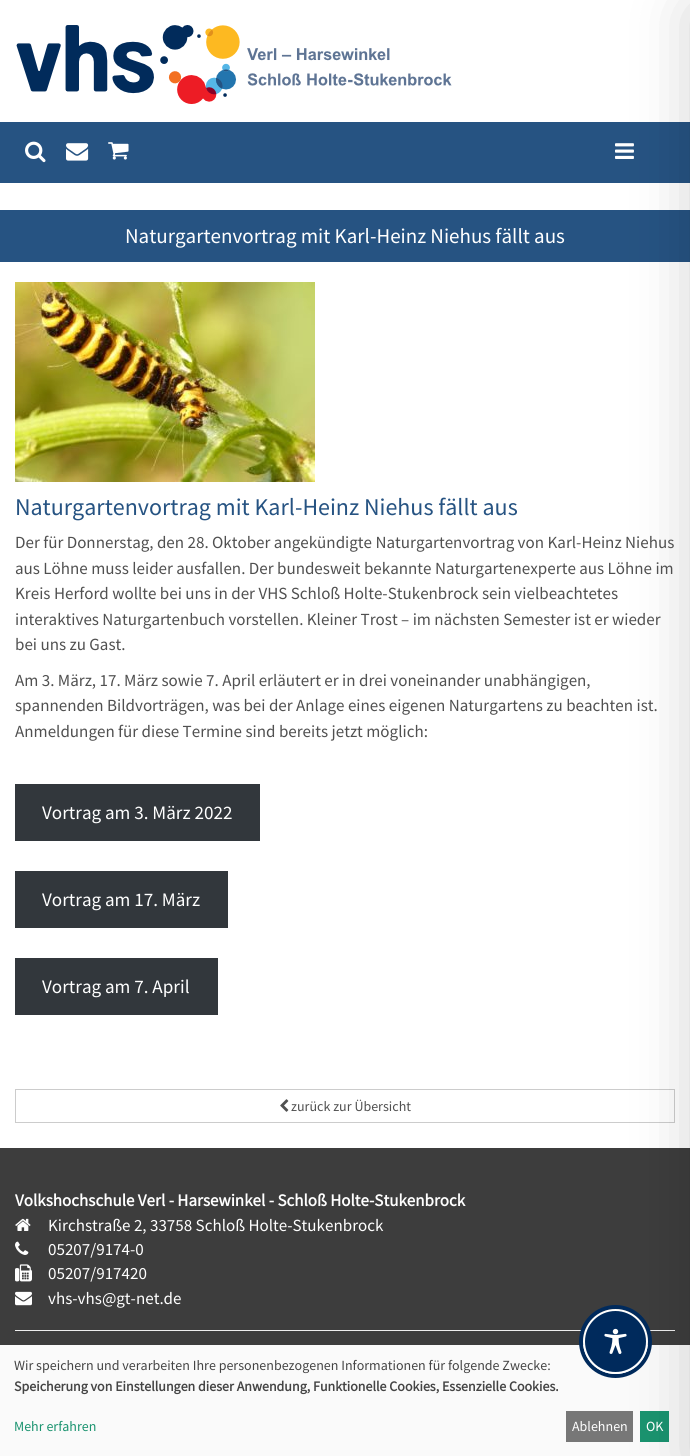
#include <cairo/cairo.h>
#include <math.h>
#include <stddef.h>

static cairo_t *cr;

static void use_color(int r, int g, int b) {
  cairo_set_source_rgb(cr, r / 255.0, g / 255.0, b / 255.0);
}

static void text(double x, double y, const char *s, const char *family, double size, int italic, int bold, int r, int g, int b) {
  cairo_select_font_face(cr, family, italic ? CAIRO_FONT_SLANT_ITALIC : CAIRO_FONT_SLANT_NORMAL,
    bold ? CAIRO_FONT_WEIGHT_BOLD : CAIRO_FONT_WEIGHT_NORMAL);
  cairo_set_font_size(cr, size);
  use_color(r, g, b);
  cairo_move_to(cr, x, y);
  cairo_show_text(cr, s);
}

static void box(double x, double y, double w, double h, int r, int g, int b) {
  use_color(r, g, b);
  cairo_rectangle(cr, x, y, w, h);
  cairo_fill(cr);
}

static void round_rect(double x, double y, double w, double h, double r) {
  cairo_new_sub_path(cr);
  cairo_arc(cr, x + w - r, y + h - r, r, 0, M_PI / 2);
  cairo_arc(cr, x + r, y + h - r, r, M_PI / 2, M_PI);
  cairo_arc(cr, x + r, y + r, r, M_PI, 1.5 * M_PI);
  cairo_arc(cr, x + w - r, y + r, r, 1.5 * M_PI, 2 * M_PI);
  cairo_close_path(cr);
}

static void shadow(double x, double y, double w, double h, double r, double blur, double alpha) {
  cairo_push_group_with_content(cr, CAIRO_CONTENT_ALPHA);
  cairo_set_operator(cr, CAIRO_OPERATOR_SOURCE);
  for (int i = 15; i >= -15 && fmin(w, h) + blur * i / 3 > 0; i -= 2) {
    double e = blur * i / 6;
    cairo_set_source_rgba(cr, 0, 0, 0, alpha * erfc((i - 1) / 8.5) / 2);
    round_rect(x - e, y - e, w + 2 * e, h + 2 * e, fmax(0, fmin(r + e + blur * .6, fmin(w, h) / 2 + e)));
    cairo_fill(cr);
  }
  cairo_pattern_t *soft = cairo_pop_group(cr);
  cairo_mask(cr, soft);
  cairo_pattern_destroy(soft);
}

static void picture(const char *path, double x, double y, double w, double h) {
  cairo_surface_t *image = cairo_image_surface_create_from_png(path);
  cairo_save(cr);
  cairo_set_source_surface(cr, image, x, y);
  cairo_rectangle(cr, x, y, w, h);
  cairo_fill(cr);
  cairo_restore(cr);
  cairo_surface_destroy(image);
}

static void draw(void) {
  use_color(255, 255, 255);
  cairo_paint(cr);
  box(0, 122, 690, 61, 38, 83, 130);
  picture("img_05.png", 615, 143, 19, 16);
  box(0, 210, 690, 52, 38, 83, 130);
  cairo_rectangle(cr, 15.5, 1089.5, 659, 33);
  use_color(204, 204, 204);
  cairo_set_line_width(cr, 1);
  cairo_stroke(cr);
  box(0, 1148, 690, 197, 61, 61, 61);
  box(15, 1330, 660, 1, 238, 238, 238);
  box(0, 1345, 690, 111, 250, 250, 250);
  cairo_arc(cr, 615.5, 1341.5, 34.5, 0, 2 * M_PI);
  use_color(0, 42, 92);
  cairo_set_line_width(cr, 4);
  cairo_stroke(cr);
  cairo_arc(cr, 615.5, 1341.5, 31.5, 0, 2 * M_PI);
  cairo_fill_preserve(cr);
  use_color(255, 255, 255);
  cairo_set_line_width(cr, 2);
  cairo_stroke(cr);
  picture("img_12.png", 604, 1328, 23, 26);
  box(566, 1411, 67, 31, 119, 119, 119);
  box(640, 1411, 29, 31, 26, 147, 111);
  use_color(0, 0, 0);
  shadow(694, 10, 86, 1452, 0, 30, 0.2);
  picture("img_01.png", 16, 25, 436, 79);
  picture("img_02.png", 25, 141, 21, 22);
  picture("img_03.png", 66, 143, 23, 18);
  picture("img_04.png", 108, 142, 21, 18);
  picture("img_06.png", 15, 282, 300, 200);
  box(15, 784, 245, 57, 50, 55, 60);
  box(15, 871, 213, 57, 50, 55, 60);
  box(15, 958, 203, 57, 50, 55, 60);
  picture("img_07.png", 280, 1099, 9, 13);
  picture("img_08.png", 15, 1218, 16, 13);
  picture("img_09.png", 15, 1241, 14, 14);
  picture("img_10.png", 15, 1264, 17, 18);
  picture("img_11.png", 15, 1291, 17, 15);
  text(125, 243, "Naturgartenvortrag mit Karl-Heinz Niehus fällt aus", "Source Sans Pro", 21, 0, 0, 255, 255, 255);
  text(15, 515, "Naturgartenvortrag mit Karl-Heinz Niehus fällt aus", "Source Sans Pro", 24, 0, 0, 38, 83, 130);
  text(15, 548, "Der für Donnerstag, den 28. Oktober angekündigte Naturgartenvortrag von Karl-Heinz Niehus", "Source Sans Pro", 17, 0, 0, 80, 80, 80);
  text(15, 574, "aus Löhne muss leider ausfallen. Der bundesweit bekannte Naturgartenexperte aus Löhne im", "Source Sans Pro", 17, 0, 0, 80, 80, 80);
  text(15, 599, "Kreis Herford wollte bei uns in der VHS Schloß Holte-Stukenbrock sein vielbeachtetes", "Source Sans Pro", 17, 0, 0, 80, 80, 80);
  text(15, 625, "interaktives Naturgartenbuch vorstellen. Kleiner Trost – im nächsten Semester ist er wieder", "Source Sans Pro", 17, 0, 0, 80, 80, 80);
  text(15, 650, "bei uns zu Gast.", "Source Sans Pro", 17, 0, 0, 80, 80, 80);
  text(15, 686, "Am 3. März, 17. März sowie 7. April erläutert er in drei voneinander unabhängigen,", "Source Sans Pro", 17, 0, 0, 80, 80, 80);
  text(15, 711, "spannenden Bildvorträgen, was bei der Anlage eines eigenen Naturgartens zu beachten ist.", "Source Sans Pro", 17, 0, 0, 80, 80, 80);
  text(15, 737, "Anmeldungen für diese Termine sind bereits jetzt möglich:", "Source Sans Pro", 17, 0, 0, 80, 80, 80);
  text(42, 819, "Vortrag am 3. März 2022", "Source Sans Pro", 19.1, 0, 0, 255, 255, 255);
  text(42, 906, "Vortrag am 17. März", "Source Sans Pro", 19.1, 0, 0, 255, 255, 255);
  text(42, 993, "Vortrag am 7. April", "Source Sans Pro", 19.1, 0, 0, 255, 255, 255);
  text(291, 1111, "zurück zur Übersicht", "Source Sans Pro", 14, 0, 0, 80, 80, 80);
  text(15, 1206, "Volkshochschule Verl - Harsewinkel - Schloß Holte-Stukenbrock", "Source Sans Pro", 17, 0, 1, 255, 255, 255);
  text(48, 1231, "Kirchstraße 2, 33758 Schloß Holte-Stukenbrock", "Source Sans Pro", 17, 0, 0, 255, 255, 255);
  text(48, 1255, "05207/9174-0", "Source Sans Pro", 17, 0, 0, 255, 255, 255);
  text(48, 1279, "05207/917420", "Source Sans Pro", 17, 0, 0, 255, 255, 255);
  text(48, 1304, "vhs-vhs@gt-net.de", "Source Sans Pro", 17, 0, 0, 255, 255, 255);
  text(14, 1370, "Wir speichern und verarbeiten Ihre personenbezogenen Informationen für folgende Zwecke:", "Source Sans Pro", 14, 0, 0, 68, 68, 68);
  text(14, 1391, "Speicherung von Einstellungen dieser Anwendung, Funktionelle Cookies, Essenzielle Cookies.", "Source Sans Pro", 14, 0, 1, 68, 68, 68);
  text(14, 1431, "Mehr erfahren", "Source Sans Pro", 14, 0, 0, 26, 147, 111);
  text(572, 1431, "Ablehnen", "Source Sans Pro", 14, 0, 0, 255, 255, 255);
  text(646, 1431, "OK", "Source Sans Pro", 14, 0, 0, 255, 255, 255);
}

int main(void) {
  cairo_surface_t *surface = cairo_image_surface_create(CAIRO_FORMAT_RGB24, 690, 1456);
  cr = cairo_create(surface);
  cairo_font_options_t *options = cairo_font_options_create();
  cairo_font_options_set_hint_metrics(options, CAIRO_HINT_METRICS_OFF);
  cairo_font_options_set_hint_style(options, CAIRO_HINT_STYLE_NONE);
  cairo_set_font_options(cr, options);
  cairo_set_miter_limit(cr, 4);
  draw();
  cairo_surface_write_to_png(surface, "out.png");
  cairo_font_options_destroy(options);
  cairo_destroy(cr);
  cairo_surface_destroy(surface);
  return 0;
}
